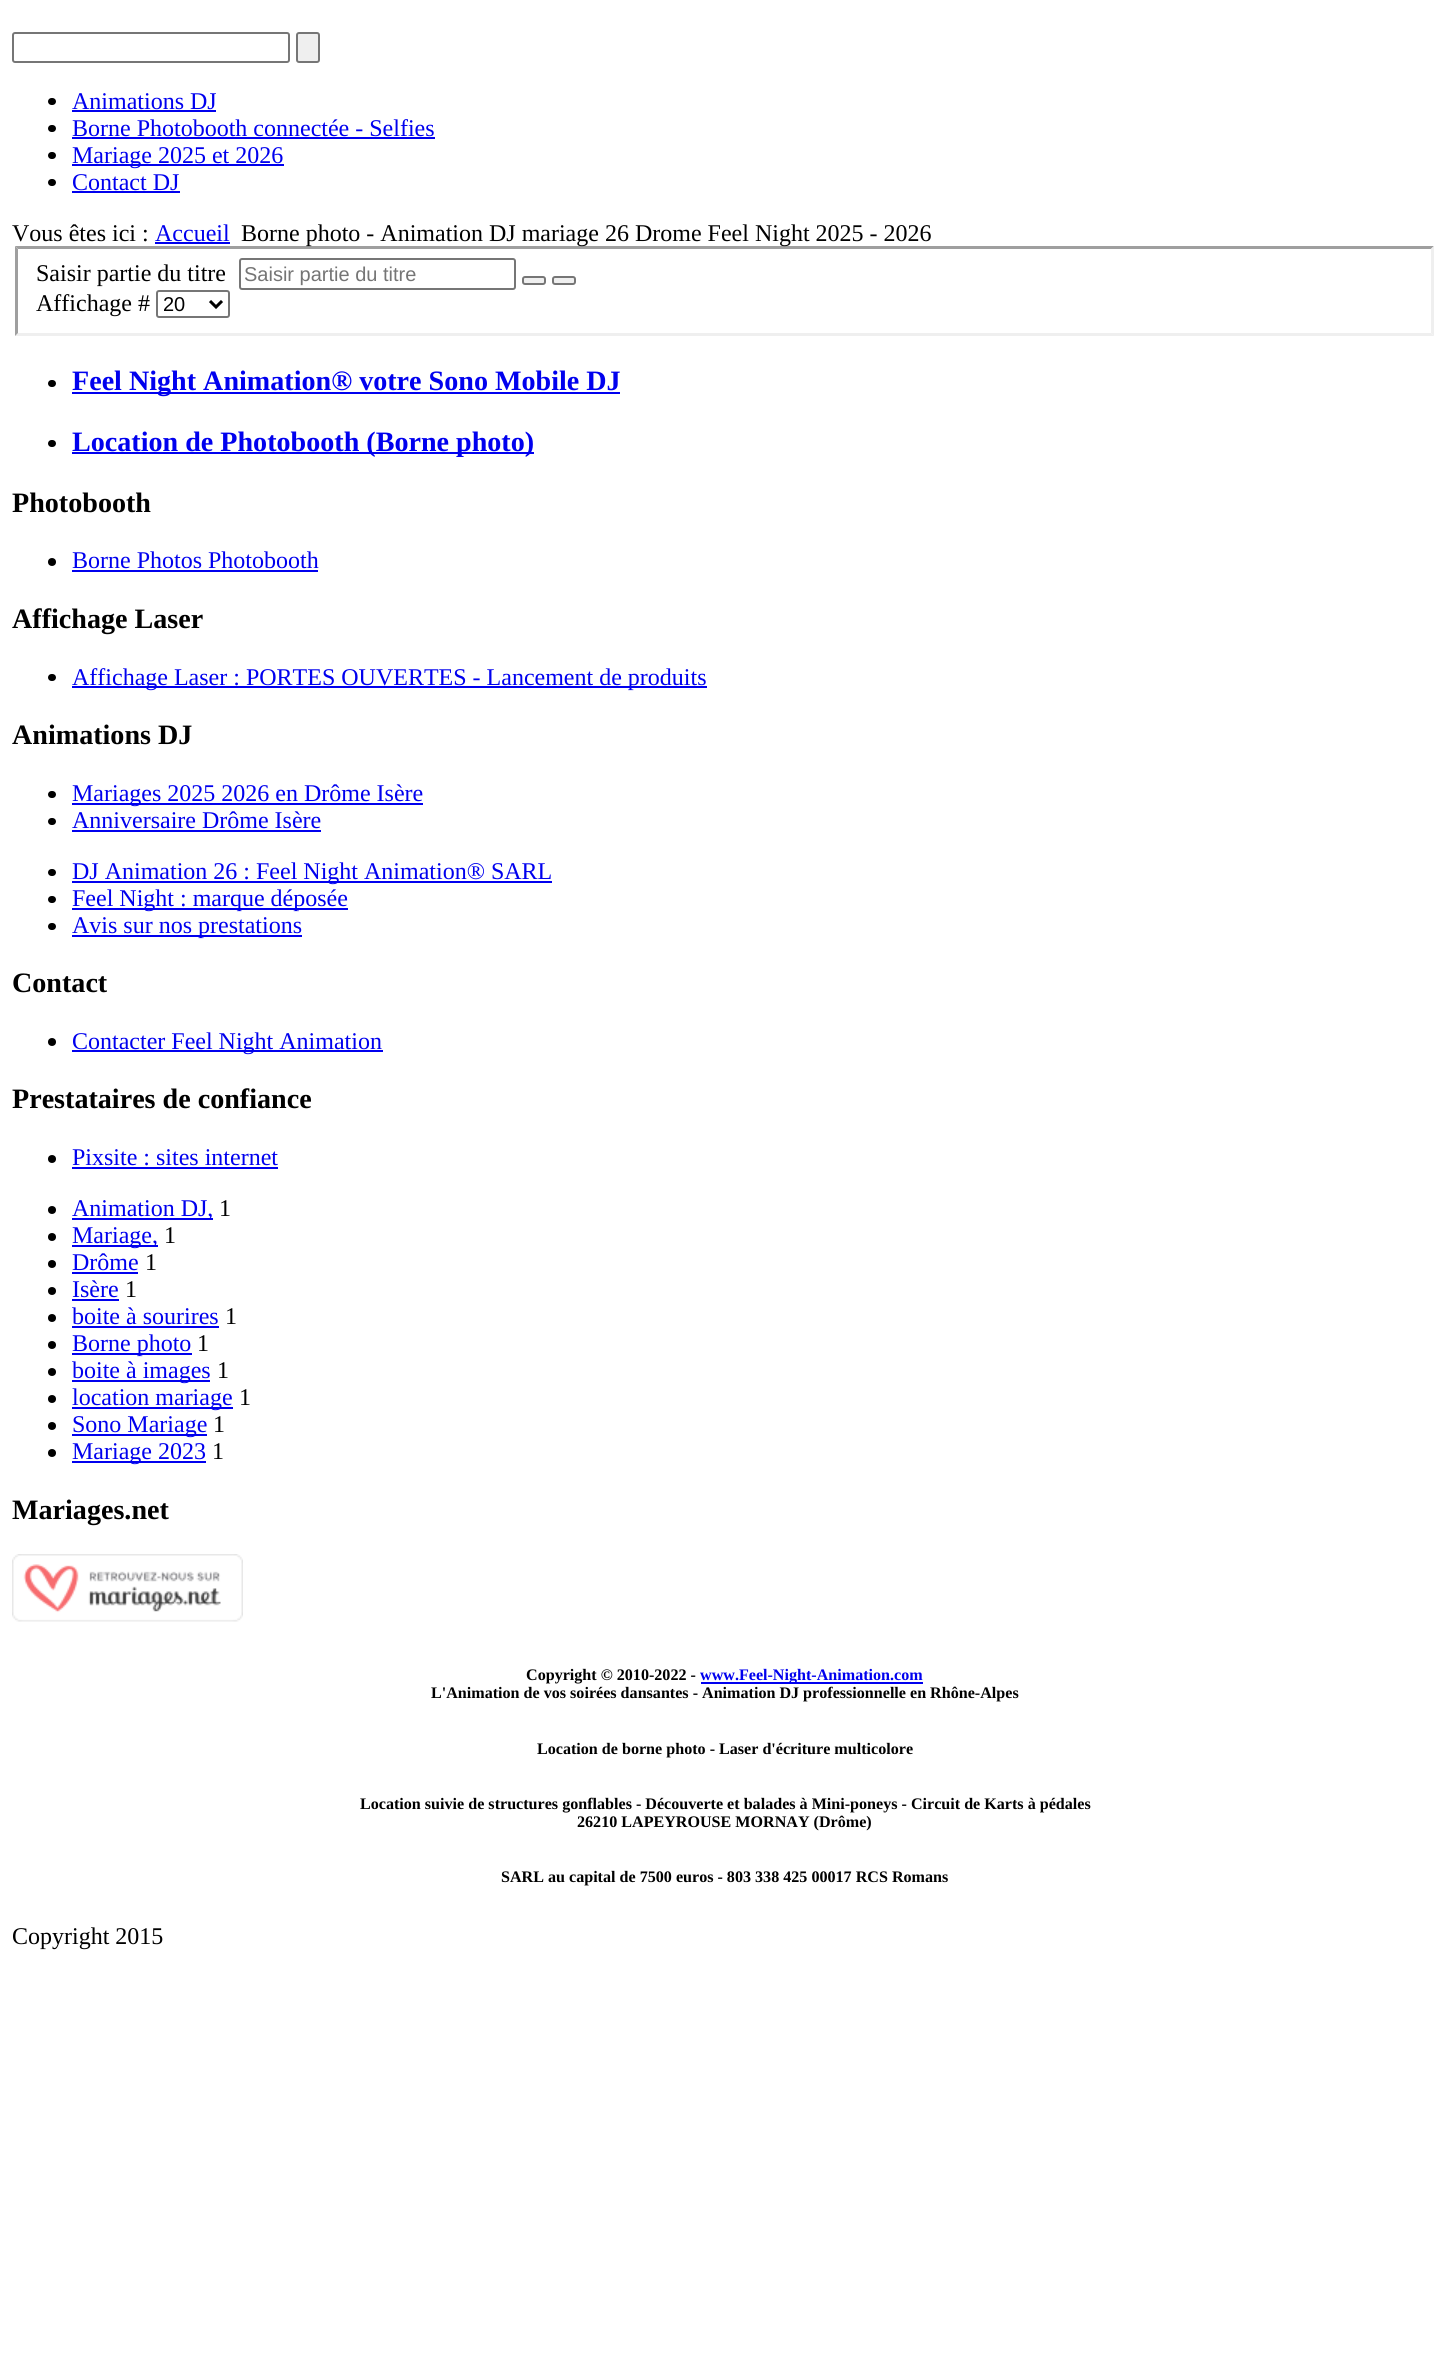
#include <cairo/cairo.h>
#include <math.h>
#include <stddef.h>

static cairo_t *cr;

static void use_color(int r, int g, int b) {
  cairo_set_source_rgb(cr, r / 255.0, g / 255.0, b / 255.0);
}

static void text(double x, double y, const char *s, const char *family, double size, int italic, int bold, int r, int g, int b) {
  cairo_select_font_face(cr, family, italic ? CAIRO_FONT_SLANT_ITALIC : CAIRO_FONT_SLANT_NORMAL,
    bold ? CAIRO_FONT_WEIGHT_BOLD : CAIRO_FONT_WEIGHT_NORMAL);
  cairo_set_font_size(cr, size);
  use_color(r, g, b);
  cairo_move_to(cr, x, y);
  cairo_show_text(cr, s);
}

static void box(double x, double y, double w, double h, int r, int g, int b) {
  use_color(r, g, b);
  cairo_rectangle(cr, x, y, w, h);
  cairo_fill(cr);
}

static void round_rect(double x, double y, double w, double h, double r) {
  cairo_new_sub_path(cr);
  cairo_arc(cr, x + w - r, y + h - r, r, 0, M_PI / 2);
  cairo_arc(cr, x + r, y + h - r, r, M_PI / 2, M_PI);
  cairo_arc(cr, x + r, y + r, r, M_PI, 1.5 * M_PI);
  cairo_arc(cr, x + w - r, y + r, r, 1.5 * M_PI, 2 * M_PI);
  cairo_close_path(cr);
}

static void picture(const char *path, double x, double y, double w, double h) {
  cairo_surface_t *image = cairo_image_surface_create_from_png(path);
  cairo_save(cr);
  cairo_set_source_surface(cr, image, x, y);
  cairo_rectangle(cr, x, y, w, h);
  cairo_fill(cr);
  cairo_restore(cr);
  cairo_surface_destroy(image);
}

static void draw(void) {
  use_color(255, 255, 255);
  cairo_paint(cr);
  round_rect(13, 33, 276, 29, 2);
  use_color(118, 118, 118);
  cairo_stroke(cr);
  use_color(239, 239, 239);
  round_rect(297, 33, 22, 29, 2);
  cairo_fill_preserve(cr);
  use_color(118, 118, 118);
  cairo_stroke(cr);
  use_color(0, 0, 0);
  round_rect(48, 98, 8, 7, 3.5);
  cairo_fill(cr);
  box(72, 110, 144, 2, 0, 0, 238);
  use_color(0, 0, 0);
  round_rect(48, 125, 8, 7, 3.5);
  cairo_fill(cr);
  box(72, 137, 363, 2, 0, 0, 238);
  use_color(0, 0, 0);
  round_rect(48, 152, 8, 7, 3.5);
  cairo_fill(cr);
  box(72, 164, 212, 2, 0, 0, 238);
  use_color(0, 0, 0);
  round_rect(48, 179, 8, 7, 3.5);
  cairo_fill(cr);
  box(72, 191, 108, 2, 0, 0, 238);
  box(155, 242, 75, 2, 0, 0, 238);
  use_color(159, 159, 159);
  cairo_new_path(cr);
  cairo_move_to(cr, 15, 246);
  cairo_line_to(cr, 1434, 246);
  cairo_line_to(cr, 1431, 249);
  cairo_line_to(cr, 18, 249);
  cairo_close_path(cr);
  cairo_fill(cr);
  use_color(239, 239, 239);
  cairo_new_path(cr);
  cairo_move_to(cr, 1434, 246);
  cairo_line_to(cr, 1434, 336);
  cairo_line_to(cr, 1431, 333);
  cairo_line_to(cr, 1431, 249);
  cairo_close_path(cr);
  cairo_fill(cr);
  cairo_new_path(cr);
  cairo_move_to(cr, 1434, 336);
  cairo_line_to(cr, 15, 336);
  cairo_line_to(cr, 18, 333);
  cairo_line_to(cr, 1431, 333);
  cairo_close_path(cr);
  cairo_fill(cr);
  use_color(159, 159, 159);
  cairo_new_path(cr);
  cairo_move_to(cr, 15, 336);
  cairo_line_to(cr, 15, 246);
  cairo_line_to(cr, 18, 249);
  cairo_line_to(cr, 18, 333);
  cairo_close_path(cr);
  cairo_fill(cr);
  round_rect(240, 259, 275, 30, 2);
  use_color(118, 118, 118);
  cairo_stroke(cr);
  use_color(239, 239, 239);
  round_rect(523, 277, 22, 7, 2);
  cairo_fill_preserve(cr);
  use_color(118, 118, 118);
  cairo_stroke(cr);
  use_color(239, 239, 239);
  round_rect(553, 277, 22, 7, 2);
  cairo_fill_preserve(cr);
  use_color(118, 118, 118);
  cairo_stroke(cr);
  round_rect(157, 291, 72, 26, 2);
  cairo_stroke(cr);
  cairo_new_path(cr);
  cairo_move_to(cr, 210, 301);
  cairo_line_to(cr, 216, 307);
  cairo_line_to(cr, 222, 301);
  use_color(0, 0, 0);
  cairo_set_line_width(cr, 3);
  cairo_stroke(cr);
  round_rect(48, 380, 8, 7, 3.5);
  cairo_fill(cr);
  box(72, 392, 548, 2, 0, 0, 238);
  use_color(0, 0, 0);
  round_rect(48, 440, 8, 7, 3.5);
  cairo_fill(cr);
  box(72, 452, 462, 2, 0, 0, 238);
  use_color(0, 0, 0);
  cairo_arc(cr, 52, 562, 4, 0, 2 * M_PI);
  cairo_fill(cr);
  box(72, 570, 246, 2, 0, 0, 238);
  use_color(0, 0, 0);
  round_rect(48, 674, 8, 7, 3.5);
  cairo_fill(cr);
  box(72, 686, 635, 2, 0, 0, 238);
  use_color(0, 0, 0);
  round_rect(48, 791, 8, 7, 3.5);
  cairo_fill(cr);
  box(72, 803, 351, 2, 0, 0, 238);
  use_color(0, 0, 0);
  round_rect(48, 818, 8, 7, 3.5);
  cairo_fill(cr);
  box(72, 830, 249, 2, 0, 0, 238);
  use_color(0, 0, 0);
  round_rect(48, 869, 8, 7, 3.5);
  cairo_fill(cr);
  box(72, 881, 480, 2, 0, 0, 238);
  use_color(0, 0, 0);
  round_rect(48, 896, 8, 7, 3.5);
  cairo_fill(cr);
  box(72, 908, 276, 2, 0, 0, 238);
  use_color(0, 0, 0);
  round_rect(48, 923, 8, 7, 3.5);
  cairo_fill(cr);
  box(72, 935, 230, 2, 0, 0, 238);
  use_color(0, 0, 0);
  cairo_arc(cr, 52, 1042, 4, 0, 2 * M_PI);
  cairo_fill(cr);
  box(72, 1050, 311, 2, 0, 0, 238);
  use_color(0, 0, 0);
  cairo_arc(cr, 52, 1159, 4, 0, 2 * M_PI);
  cairo_fill(cr);
  box(72, 1167, 206, 2, 0, 0, 238);
  use_color(0, 0, 0);
  cairo_arc(cr, 52, 1210, 4, 0, 2 * M_PI);
  cairo_fill(cr);
  box(72, 1218, 141, 2, 0, 0, 238);
  use_color(0, 0, 0);
  cairo_arc(cr, 52, 1237, 4, 0, 2 * M_PI);
  cairo_fill(cr);
  box(72, 1245, 86, 2, 0, 0, 238);
  use_color(0, 0, 0);
  cairo_arc(cr, 52, 1264, 4, 0, 2 * M_PI);
  cairo_fill(cr);
  box(72, 1272, 66, 2, 0, 0, 238);
  use_color(0, 0, 0);
  cairo_arc(cr, 52, 1291, 4, 0, 2 * M_PI);
  cairo_fill(cr);
  box(72, 1299, 47, 2, 0, 0, 238);
  use_color(0, 0, 0);
  cairo_arc(cr, 52, 1318, 4, 0, 2 * M_PI);
  cairo_fill(cr);
  box(72, 1326, 147, 2, 0, 0, 238);
  use_color(0, 0, 0);
  cairo_arc(cr, 52, 1345, 4, 0, 2 * M_PI);
  cairo_fill(cr);
  box(72, 1353, 120, 2, 0, 0, 238);
  use_color(0, 0, 0);
  cairo_arc(cr, 52, 1372, 4, 0, 2 * M_PI);
  cairo_fill(cr);
  box(72, 1380, 138, 2, 0, 0, 238);
  use_color(0, 0, 0);
  cairo_arc(cr, 52, 1399, 4, 0, 2 * M_PI);
  cairo_fill(cr);
  box(72, 1407, 161, 2, 0, 0, 238);
  use_color(0, 0, 0);
  cairo_arc(cr, 52, 1426, 4, 0, 2 * M_PI);
  cairo_fill(cr);
  box(72, 1434, 135, 2, 0, 0, 238);
  use_color(0, 0, 0);
  cairo_arc(cr, 52, 1453, 4, 0, 2 * M_PI);
  cairo_fill(cr);
  box(72, 1461, 134, 2, 0, 0, 238);
  picture("img_01.png", 12, 1554, 231, 68);
  box(701, 1682, 222, 2, 0, 0, 238);
  text(72, 109, "Animations DJ", "Liberation Serif", 24, 0, 0, 0, 0, 238);
  text(72, 136, "Borne Photobooth connectée - Selfies", "Liberation Serif", 24, 0, 0, 0, 0, 238);
  text(72, 163, "Mariage 2025 et 2026", "Liberation Serif", 24, 0, 0, 0, 0, 238);
  text(72, 190, "Contact DJ", "Liberation Serif", 24, 0, 0, 0, 0, 238);
  text(12, 241, "Vous êtes ici :", "Liberation Serif", 24, 0, 0, 0, 0, 0);
  text(155, 241, "Accueil", "Liberation Serif", 24, 0, 0, 0, 0, 238);
  text(241, 241, "Borne photo - Animation DJ mariage 26 Drome Feel Night 2025 - 2026", "Liberation Serif", 24, 0, 0, 0, 0, 0);
  text(36, 281, "Saisir partie du titre", "Liberation Serif", 24, 0, 0, 0, 0, 0);
  text(244, 281, "Saisir partie du titre", "Liberation Sans", 20, 0, 0, 117, 117, 117);
  text(36, 311, "Affichage #", "Liberation Serif", 24, 0, 0, 0, 0, 0);
  text(163, 311, "20", "Liberation Sans", 20, 0, 0, 0, 0, 0);
  text(72, 390, "Feel Night Animation® votre Sono Mobile DJ", "Liberation Serif", 28.1, 0, 1, 0, 0, 238);
  text(72, 451, "Location de Photobooth (Borne photo)", "Liberation Serif", 28.1, 0, 1, 0, 0, 238);
  text(12, 512, "Photobooth", "Liberation Serif", 28.1, 0, 1, 0, 0, 0);
  text(72, 568, "Borne Photos Photobooth", "Liberation Serif", 24, 0, 0, 0, 0, 238);
  text(12, 628, "Affichage Laser", "Liberation Serif", 28.1, 0, 1, 0, 0, 0);
  text(72, 685, "Affichage Laser : PORTES OUVERTES - Lancement de produits", "Liberation Serif", 24, 0, 0, 0, 0, 238);
  text(12, 744, "Animations DJ", "Liberation Serif", 28.1, 0, 1, 0, 0, 0);
  text(72, 801, "Mariages 2025 2026 en Drôme Isère", "Liberation Serif", 24, 0, 0, 0, 0, 238);
  text(72, 828, "Anniversaire Drôme Isère", "Liberation Serif", 24, 0, 0, 0, 0, 238);
  text(72, 879, "DJ Animation 26 : Feel Night Animation® SARL", "Liberation Serif", 24, 0, 0, 0, 0, 238);
  text(72, 906, "Feel Night : marque déposée", "Liberation Serif", 24, 0, 0, 0, 0, 238);
  text(72, 933, "Avis sur nos prestations", "Liberation Serif", 24, 0, 0, 0, 0, 238);
  text(12, 992, "Contact", "Liberation Serif", 28.1, 0, 1, 0, 0, 0);
  text(72, 1049, "Contacter Feel Night Animation", "Liberation Serif", 24, 0, 0, 0, 0, 238);
  text(12, 1108, "Prestataires de confiance", "Liberation Serif", 28.1, 0, 1, 0, 0, 0);
  text(72, 1165, "Pixsite : sites internet", "Liberation Serif", 24, 0, 0, 0, 0, 238);
  text(72, 1216, "Animation DJ,", "Liberation Serif", 24, 0, 0, 0, 0, 238);
  text(219, 1216, "1", "Liberation Serif", 24, 0, 0, 0, 0, 0);
  text(72, 1243, "Mariage,", "Liberation Serif", 24, 0, 0, 0, 0, 238);
  text(164, 1243, "1", "Liberation Serif", 24, 0, 0, 0, 0, 0);
  text(72, 1270, "Drôme", "Liberation Serif", 24, 0, 0, 0, 0, 238);
  text(145, 1270, "1", "Liberation Serif", 24, 0, 0, 0, 0, 0);
  text(72, 1297, "Isère", "Liberation Serif", 24, 0, 0, 0, 0, 238);
  text(125, 1297, "1", "Liberation Serif", 24, 0, 0, 0, 0, 0);
  text(72, 1324, "boite à sourires", "Liberation Serif", 24, 0, 0, 0, 0, 238);
  text(225, 1324, "1", "Liberation Serif", 24, 0, 0, 0, 0, 0);
  text(72, 1351, "Borne photo", "Liberation Serif", 24, 0, 0, 0, 0, 238);
  text(197, 1351, "1", "Liberation Serif", 24, 0, 0, 0, 0, 0);
  text(72, 1378, "boite à images", "Liberation Serif", 24, 0, 0, 0, 0, 238);
  text(217, 1378, "1", "Liberation Serif", 24, 0, 0, 0, 0, 0);
  text(72, 1405, "location mariage", "Liberation Serif", 24, 0, 0, 0, 0, 238);
  text(239, 1405, "1", "Liberation Serif", 24, 0, 0, 0, 0, 0);
  text(72, 1432, "Sono Mariage", "Liberation Serif", 24, 0, 0, 0, 0, 238);
  text(213, 1432, "1", "Liberation Serif", 24, 0, 0, 0, 0, 0);
  text(72, 1459, "Mariage 2023", "Liberation Serif", 24, 0, 0, 0, 0, 238);
  text(212, 1459, "1", "Liberation Serif", 24, 0, 0, 0, 0, 0);
  text(12, 1519, "Mariages.net", "Liberation Serif", 28.1, 0, 1, 0, 0, 0);
  text(526, 1680, "Copyright © 2010-2022 -", "Liberation Serif", 16.1, 0, 1, 0, 0, 0);
  text(700, 1680, "www.Feel-Night-Animation.com", "Liberation Serif", 16.1, 0, 1, 0, 0, 238);
  text(431, 1698, "L'Animation de vos soirées dansantes - Animation DJ professionnelle en Rhône-Alpes", "Liberation Serif", 16.1, 0, 1, 0, 0, 0);
  text(537, 1754, "Location de borne photo - Laser d'écriture multicolore", "Liberation Serif", 16.1, 0, 1, 0, 0, 0);
  text(360, 1809, "Location suivie de structures gonflables - Découverte et balades à Mini-poneys - Circuit de Karts à pédales", "Liberation Serif", 16.1, 0, 1, 0, 0, 0);
  text(577, 1827, "26210 LAPEYROUSE MORNAY (Drôme)", "Liberation Serif", 16.1, 0, 1, 0, 0, 0);
  text(501, 1882, "SARL au capital de 7500 euros - 803 338 425 00017 RCS Romans", "Liberation Serif", 16.1, 0, 1, 0, 0, 0);
  text(12, 1944, "Copyright 2015", "Liberation Serif", 24, 0, 0, 0, 0, 0);
}

int main(void) {
  cairo_surface_t *surface = cairo_image_surface_create(CAIRO_FORMAT_RGB24, 1449, 2376);
  cr = cairo_create(surface);
  cairo_font_options_t *options = cairo_font_options_create();
  cairo_font_options_set_hint_metrics(options, CAIRO_HINT_METRICS_OFF);
  cairo_font_options_set_hint_style(options, CAIRO_HINT_STYLE_NONE);
  cairo_set_font_options(cr, options);
  cairo_set_miter_limit(cr, 4);
  draw();
  cairo_surface_write_to_png(surface, "out.png");
  cairo_font_options_destroy(options);
  cairo_destroy(cr);
  cairo_surface_destroy(surface);
  return 0;
}
